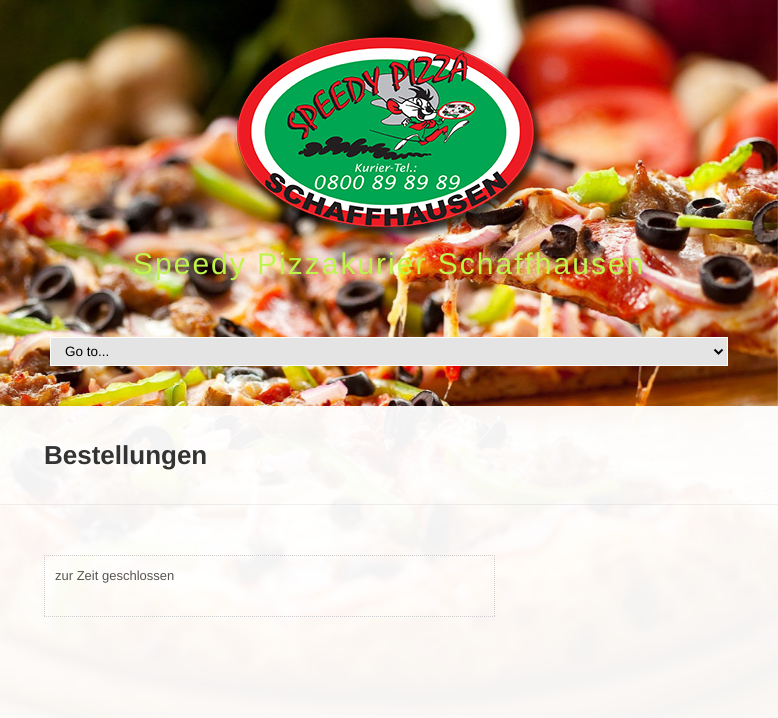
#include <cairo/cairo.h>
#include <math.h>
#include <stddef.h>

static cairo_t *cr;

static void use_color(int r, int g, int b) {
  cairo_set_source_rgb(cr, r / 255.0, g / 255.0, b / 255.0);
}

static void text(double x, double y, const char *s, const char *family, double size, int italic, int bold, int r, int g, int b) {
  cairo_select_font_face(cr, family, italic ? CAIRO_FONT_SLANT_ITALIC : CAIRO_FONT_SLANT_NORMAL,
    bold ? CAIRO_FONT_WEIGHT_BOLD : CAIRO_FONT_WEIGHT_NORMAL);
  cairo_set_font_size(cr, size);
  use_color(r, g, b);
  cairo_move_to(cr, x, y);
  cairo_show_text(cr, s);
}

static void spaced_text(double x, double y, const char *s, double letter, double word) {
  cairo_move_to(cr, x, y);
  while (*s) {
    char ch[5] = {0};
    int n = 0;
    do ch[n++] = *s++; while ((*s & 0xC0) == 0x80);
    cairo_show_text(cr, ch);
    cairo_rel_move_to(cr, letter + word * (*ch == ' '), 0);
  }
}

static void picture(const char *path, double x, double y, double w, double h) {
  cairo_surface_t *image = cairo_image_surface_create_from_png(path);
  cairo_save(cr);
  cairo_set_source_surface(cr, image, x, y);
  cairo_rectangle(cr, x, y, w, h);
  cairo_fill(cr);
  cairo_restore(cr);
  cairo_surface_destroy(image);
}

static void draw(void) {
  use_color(255, 255, 255);
  cairo_paint(cr);
  picture("img_01.png", 0, 0, 778, 718);
  picture("img_02.png", 234, 37, 311, 204);
  use_color(228, 228, 228);
  cairo_rectangle(cr, 50.5, 337.5, 677, 28);
  cairo_fill_preserve(cr);
  use_color(255, 255, 255);
  cairo_set_line_width(cr, 1);
  cairo_stroke(cr);
  cairo_new_path(cr);
  cairo_move_to(cr, 714.5, 349.5);
  cairo_line_to(cr, 718.5, 353.5);
  cairo_line_to(cr, 722.5, 349.5);
  use_color(0, 0, 0);
  cairo_set_line_width(cr, 2);
  cairo_stroke(cr);
  cairo_set_source_rgba(cr, 1, 1, 1, 0.95);
  cairo_rectangle(cr, 0, 406, 778, 99);
  cairo_fill(cr);
  cairo_set_source_rgba(cr, 0.8, 0.8, 0.8, 0.3);
  cairo_rectangle(cr, 0, 504, 778, 1);
  cairo_fill(cr);
  cairo_set_source_rgba(cr, 1, 1, 1, 0.95);
  cairo_rectangle(cr, 0, 505, 778, 213);
  cairo_fill(cr);
  cairo_new_path(cr);
  cairo_move_to(cr, 44, 555.5);
  cairo_line_to(cr, 495, 555.5);
  use_color(206, 206, 206);
  cairo_set_line_width(cr, 1);
  cairo_set_dash(cr, (double[]){1, 1}, 2, 0);
  cairo_stroke(cr);
  cairo_new_path(cr);
  cairo_move_to(cr, 494.5, 555);
  cairo_line_to(cr, 494.5, 617);
  cairo_stroke(cr);
  cairo_new_path(cr);
  cairo_move_to(cr, 44, 616.5);
  cairo_line_to(cr, 495, 616.5);
  cairo_stroke(cr);
  cairo_new_path(cr);
  cairo_move_to(cr, 44.5, 555);
  cairo_line_to(cr, 44.5, 617);
  cairo_stroke(cr);
  cairo_select_font_face(cr, "Liberation Sans", CAIRO_FONT_SLANT_NORMAL, CAIRO_FONT_WEIGHT_NORMAL);
  cairo_set_font_size(cr, 30);
  use_color(191, 244, 75);
  spaced_text(133, 274, "Speedy Pizzakurier Schaffhausen", 2, 0);
  text(65, 356, "Go to...", "Liberation Sans", 13.5, 0, 0, 0, 0, 0);
  text(44, 464, "Bestellungen", "Liberation Sans", 26, 0, 1, 51, 51, 51);
  text(55, 580, "zur Zeit geschlossen", "Liberation Sans", 13, 0, 0, 85, 85, 85);
}

int main(void) {
  cairo_surface_t *surface = cairo_image_surface_create(CAIRO_FORMAT_RGB24, 778, 718);
  cr = cairo_create(surface);
  cairo_font_options_t *options = cairo_font_options_create();
  cairo_font_options_set_hint_metrics(options, CAIRO_HINT_METRICS_OFF);
  cairo_font_options_set_hint_style(options, CAIRO_HINT_STYLE_NONE);
  cairo_set_font_options(cr, options);
  cairo_set_miter_limit(cr, 4);
  draw();
  cairo_surface_write_to_png(surface, "out.png");
  cairo_font_options_destroy(options);
  cairo_destroy(cr);
  cairo_surface_destroy(surface);
  return 0;
}
